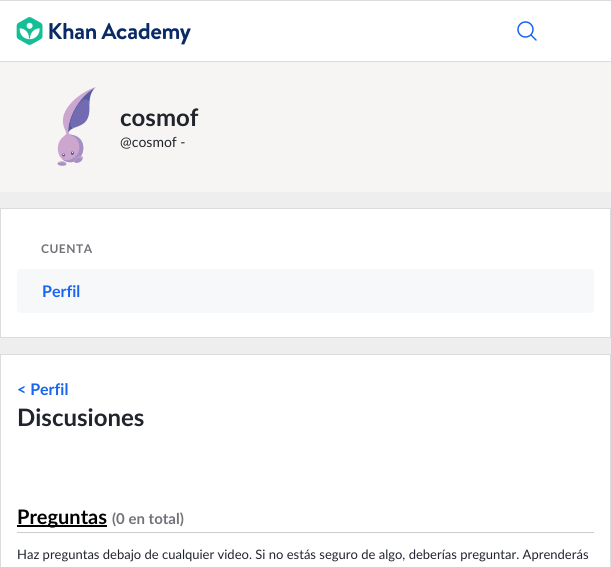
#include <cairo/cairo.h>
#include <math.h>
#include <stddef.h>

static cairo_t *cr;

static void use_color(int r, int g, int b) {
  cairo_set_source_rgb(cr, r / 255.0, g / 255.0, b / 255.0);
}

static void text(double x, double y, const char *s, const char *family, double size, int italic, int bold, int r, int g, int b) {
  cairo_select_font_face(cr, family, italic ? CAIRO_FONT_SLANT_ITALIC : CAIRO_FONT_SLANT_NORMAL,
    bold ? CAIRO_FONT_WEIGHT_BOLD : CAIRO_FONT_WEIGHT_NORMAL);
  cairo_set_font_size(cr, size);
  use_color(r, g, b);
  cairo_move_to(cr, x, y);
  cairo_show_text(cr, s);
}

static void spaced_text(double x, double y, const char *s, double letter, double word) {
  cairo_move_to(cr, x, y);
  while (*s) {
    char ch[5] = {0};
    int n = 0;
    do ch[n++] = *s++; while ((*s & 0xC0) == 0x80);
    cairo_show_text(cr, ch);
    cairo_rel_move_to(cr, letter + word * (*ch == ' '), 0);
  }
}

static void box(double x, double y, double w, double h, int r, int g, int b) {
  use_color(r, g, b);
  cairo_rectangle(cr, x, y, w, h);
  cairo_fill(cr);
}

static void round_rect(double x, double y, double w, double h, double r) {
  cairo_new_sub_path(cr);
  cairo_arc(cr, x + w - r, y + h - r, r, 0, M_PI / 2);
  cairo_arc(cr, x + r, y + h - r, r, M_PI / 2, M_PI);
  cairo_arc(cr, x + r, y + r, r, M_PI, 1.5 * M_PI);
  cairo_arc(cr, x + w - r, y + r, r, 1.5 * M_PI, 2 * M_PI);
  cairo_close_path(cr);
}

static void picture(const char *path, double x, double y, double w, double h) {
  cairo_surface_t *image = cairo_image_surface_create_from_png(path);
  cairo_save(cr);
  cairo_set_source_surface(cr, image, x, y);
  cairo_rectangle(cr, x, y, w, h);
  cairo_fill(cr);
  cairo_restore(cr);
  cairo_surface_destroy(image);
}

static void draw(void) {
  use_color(255, 255, 255);
  cairo_paint(cr);
  box(0, 0, 611, 1, 219, 220, 221);
  box(0, 61, 611, 1, 219, 220, 221);
  picture("img_01.png", 16, 17, 175, 28);
  picture("img_02.png", 517, 21, 20, 20);
  box(0, 192, 611, 162, 238, 238, 239);
  box(0, 62, 611, 130, 247, 245, 244);
  picture("img_03.png", 57, 87, 39, 79);
  use_color(255, 255, 255);
  cairo_rectangle(cr, 0.5, 208.5, 610, 129);
  cairo_fill_preserve(cr);
  use_color(219, 220, 221);
  cairo_set_line_width(cr, 1);
  cairo_stroke(cr);
  use_color(247, 248, 250);
  round_rect(17, 269, 577, 44, 4);
  cairo_fill(cr);
  cairo_rectangle(cr, 0.5, 354.5, 610, 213);
  use_color(219, 220, 221);
  cairo_stroke(cr);
  box(17, 532, 577, 1, 204, 204, 204);
  box(17, 525, 90, 2, 0, 0, 0);
  text(120, 126, "cosmof", "Lato", 24, 0, 1, 33, 36, 44);
  text(120, 147, "@cosmof -", "Lato", 14, 0, 0, 33, 36, 44);
  cairo_select_font_face(cr, "Lato", CAIRO_FONT_SLANT_NORMAL, CAIRO_FONT_WEIGHT_BOLD);
  cairo_set_font_size(cr, 12);
  use_color(113, 115, 120);
  spaced_text(41, 253, "CUENTA", 0.5, 0);
  text(42, 297, "Perfil", "Lato", 16, 0, 1, 24, 101, 242);
  text(17, 395, "< Perfil", "Lato", 16, 0, 1, 24, 101, 242);
  text(17, 426, "Discusiones", "Lato", 24, 0, 1, 33, 36, 44);
  text(17, 524, "Preguntas", "Lato", 20, 0, 1, 0, 0, 0);
  text(112, 524, "(0 en total)", "Lato", 15, 0, 1, 113, 115, 120);
  text(17, 559, "Haz preguntas debajo de cualquier video. Si no estás seguro de algo, deberías preguntar. Aprenderás", "Lato", 13, 0, 0, 33, 36, 44);
}

int main(void) {
  cairo_surface_t *surface = cairo_image_surface_create(CAIRO_FORMAT_RGB24, 611, 567);
  cr = cairo_create(surface);
  cairo_font_options_t *options = cairo_font_options_create();
  cairo_font_options_set_hint_metrics(options, CAIRO_HINT_METRICS_OFF);
  cairo_font_options_set_hint_style(options, CAIRO_HINT_STYLE_NONE);
  cairo_set_font_options(cr, options);
  cairo_set_miter_limit(cr, 4);
  draw();
  cairo_surface_write_to_png(surface, "out.png");
  cairo_font_options_destroy(options);
  cairo_destroy(cr);
  cairo_surface_destroy(surface);
  return 0;
}
